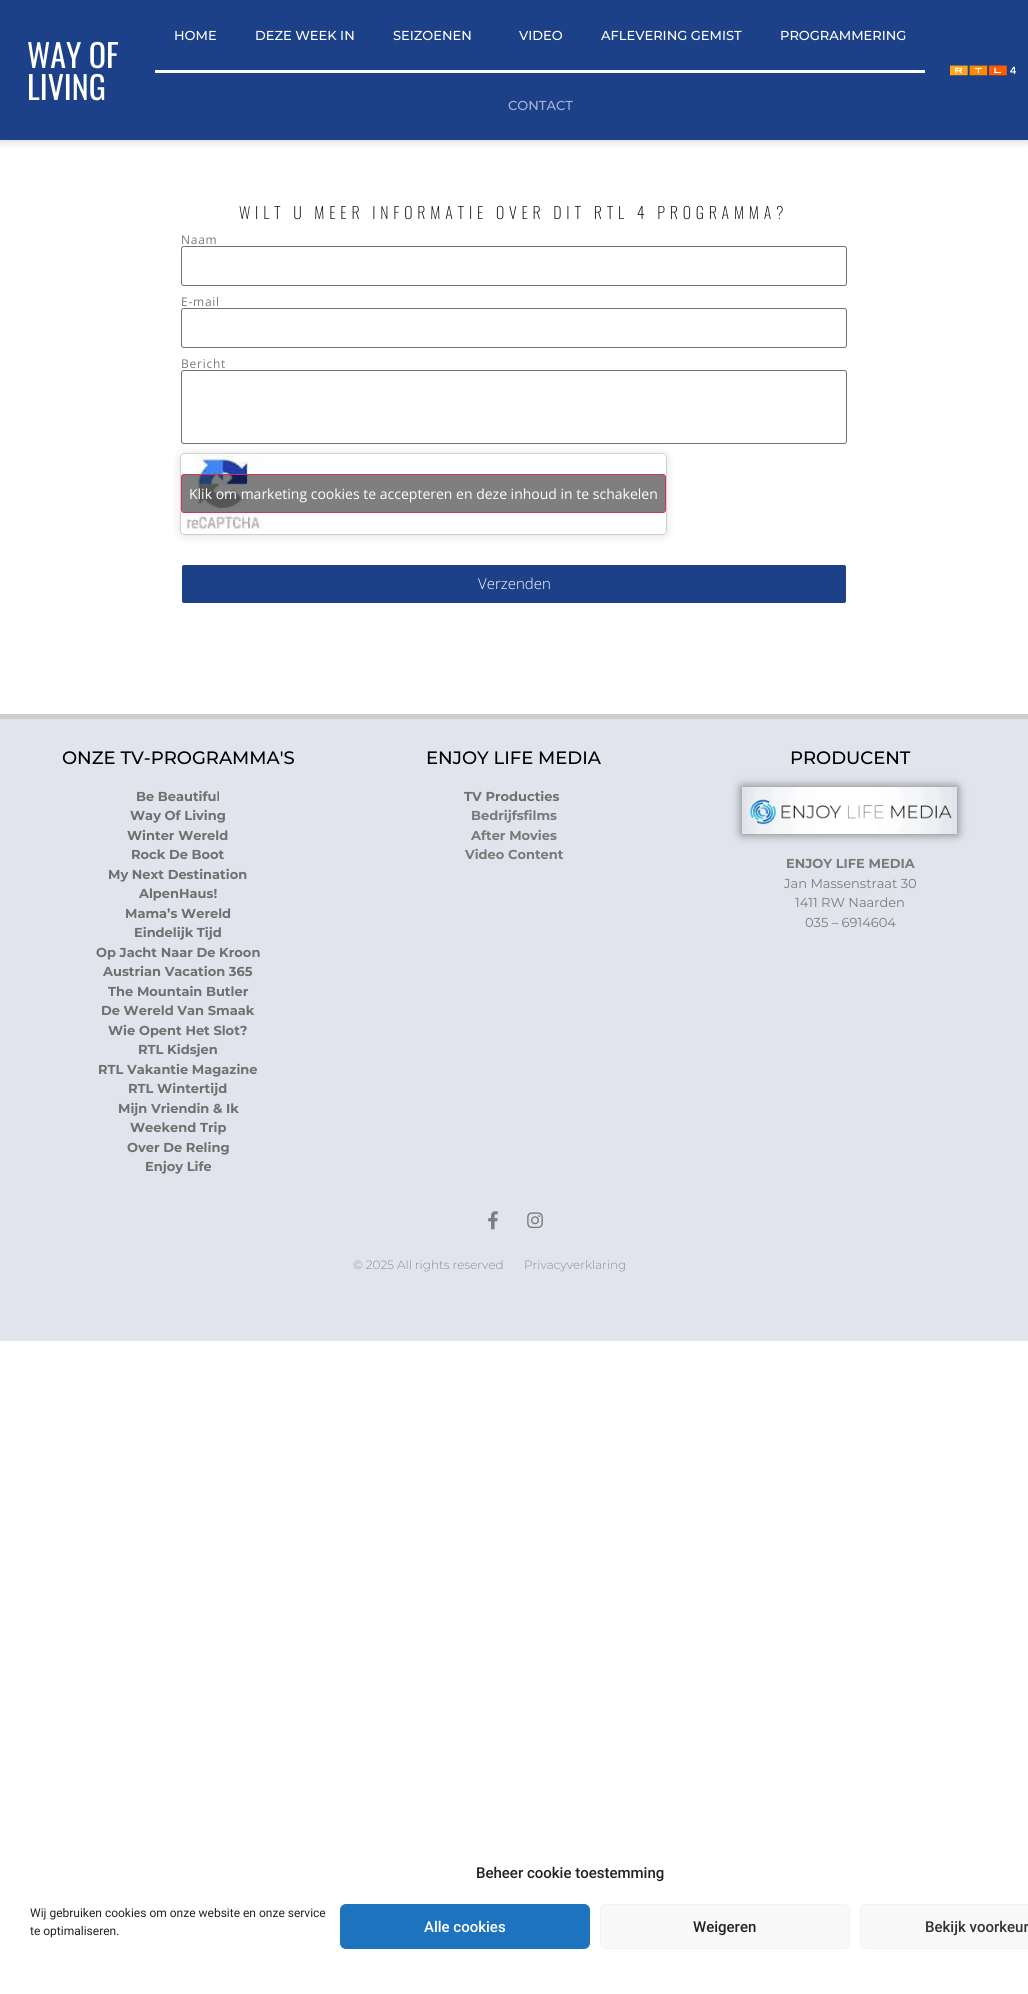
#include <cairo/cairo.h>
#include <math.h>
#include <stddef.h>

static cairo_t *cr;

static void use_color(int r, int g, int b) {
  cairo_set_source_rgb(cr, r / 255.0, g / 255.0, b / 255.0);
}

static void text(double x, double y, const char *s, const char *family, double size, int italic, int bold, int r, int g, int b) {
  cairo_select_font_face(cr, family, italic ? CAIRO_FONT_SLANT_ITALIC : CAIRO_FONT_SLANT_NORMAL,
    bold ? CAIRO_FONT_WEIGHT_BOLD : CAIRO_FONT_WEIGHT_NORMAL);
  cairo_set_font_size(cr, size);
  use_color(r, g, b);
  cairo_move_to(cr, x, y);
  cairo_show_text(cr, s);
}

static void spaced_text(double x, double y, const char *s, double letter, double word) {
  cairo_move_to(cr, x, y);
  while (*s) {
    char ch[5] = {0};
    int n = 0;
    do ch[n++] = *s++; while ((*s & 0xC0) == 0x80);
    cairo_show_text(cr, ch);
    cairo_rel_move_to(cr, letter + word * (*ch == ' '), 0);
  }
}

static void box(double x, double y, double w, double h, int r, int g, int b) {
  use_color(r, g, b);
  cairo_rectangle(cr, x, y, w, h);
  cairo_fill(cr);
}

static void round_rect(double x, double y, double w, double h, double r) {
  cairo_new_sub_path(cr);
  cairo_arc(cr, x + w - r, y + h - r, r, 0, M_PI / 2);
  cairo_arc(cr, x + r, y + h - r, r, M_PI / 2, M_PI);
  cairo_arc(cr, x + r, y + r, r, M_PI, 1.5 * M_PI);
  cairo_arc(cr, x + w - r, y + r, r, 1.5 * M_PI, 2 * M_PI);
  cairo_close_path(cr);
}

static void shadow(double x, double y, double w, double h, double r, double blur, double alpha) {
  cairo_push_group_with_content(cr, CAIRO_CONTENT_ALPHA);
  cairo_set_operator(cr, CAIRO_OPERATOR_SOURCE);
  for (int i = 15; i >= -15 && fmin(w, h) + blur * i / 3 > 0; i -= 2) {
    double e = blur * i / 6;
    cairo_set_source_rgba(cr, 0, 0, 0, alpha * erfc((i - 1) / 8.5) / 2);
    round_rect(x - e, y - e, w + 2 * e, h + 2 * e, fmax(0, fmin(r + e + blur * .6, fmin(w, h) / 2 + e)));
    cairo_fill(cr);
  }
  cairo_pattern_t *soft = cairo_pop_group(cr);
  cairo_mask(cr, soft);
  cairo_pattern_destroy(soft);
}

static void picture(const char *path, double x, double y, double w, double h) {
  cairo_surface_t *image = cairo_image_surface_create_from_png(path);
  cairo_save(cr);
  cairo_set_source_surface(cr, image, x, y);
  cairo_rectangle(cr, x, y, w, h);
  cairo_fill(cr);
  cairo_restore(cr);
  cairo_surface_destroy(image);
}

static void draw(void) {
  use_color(255, 255, 255);
  cairo_paint(cr);
  use_color(0, 0, 0);
  shadow(0, 0, 1028, 140, 0, 5, 0.23);
  box(0, 0, 1028, 140, 29, 65, 137);
  box(155, 70, 770, 3, 255, 255, 255);
  picture("img_01.png", 949, 65, 67, 11);
  round_rect(181.5, 246.5, 665, 39, 2.5);
  use_color(105, 114, 125);
  cairo_set_line_width(cr, 1);
  cairo_stroke(cr);
  round_rect(181.5, 308.5, 665, 39, 2.5);
  cairo_stroke(cr);
  round_rect(181.5, 370.5, 665, 73, 2.5);
  cairo_stroke(cr);
  use_color(0, 0, 0);
  shadow(181, 455, 485, 80, 3, 5, 0.15);
  shadow(181, 454, 485, 80, 3, 0.5, 0.5);
  picture("img_02.png", 181, 454, 485, 80);
  cairo_set_source_rgba(cr, 0, 0, 0, 0.5);
  round_rect(181.5, 474.5, 484, 38, 2.5);
  cairo_fill_preserve(cr);
  use_color(204, 51, 102);
  cairo_stroke(cr);
  use_color(29, 65, 137);
  round_rect(181.5, 564.5, 665, 39, 2.5);
  cairo_fill_preserve(cr);
  use_color(255, 255, 255);
  cairo_stroke(cr);
  box(0, 719, 1028, 622, 225, 228, 236);
  box(0, 714, 1028, 5, 206, 206, 206);
  cairo_save(cr);
  cairo_set_fill_rule(cr, CAIRO_FILL_RULE_EVEN_ODD);
  cairo_new_path(cr);
  cairo_move_to(cr, 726, 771);
  cairo_line_to(cr, 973, 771);
  cairo_line_to(cr, 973, 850);
  cairo_line_to(cr, 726, 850);
  cairo_close_path(cr);
  cairo_move_to(cr, 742, 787);
  cairo_line_to(cr, 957, 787);
  cairo_line_to(cr, 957, 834);
  cairo_line_to(cr, 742, 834);
  cairo_close_path(cr);
  cairo_clip(cr);
  use_color(0, 0, 0);
  shadow(742, 787, 215, 47, 0, 5, 0.5);
  cairo_restore(cr);
  picture("img_03.png", 747, 787, 205, 47);
  picture("img_04.png", 488, 1211, 10, 19);
  picture("img_05.png", 527, 1212, 16, 17);
  use_color(30, 115, 190);
  round_rect(340.5, 1904.5, 249, 44, 5.5);
  cairo_fill_preserve(cr);
  cairo_stroke(cr);
  use_color(249, 249, 249);
  round_rect(600.5, 1904.5, 249, 44, 5.5);
  cairo_fill_preserve(cr);
  use_color(242, 242, 242);
  cairo_stroke(cr);
  use_color(249, 249, 249);
  round_rect(860.5, 1904.5, 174, 44, 5.5);
  cairo_fill_preserve(cr);
  use_color(242, 242, 242);
  cairo_stroke(cr);
  text(27, 68, "WAY OF", "Oswald", 32, 0, 0, 255, 255, 255);
  text(27, 100, "LIVING", "Oswald", 32, 0, 0, 255, 255, 255);
  text(174, 40, "HOME", "Montserrat Medium", 13, 0, 0, 255, 255, 255);
  text(255, 40, "DEZE WEEK IN", "Montserrat Medium", 13, 0, 0, 255, 255, 255);
  text(393, 40, "SEIZOENEN", "Montserrat Medium", 13, 0, 0, 255, 255, 255);
  text(519, 40, "VIDEO", "Montserrat Medium", 13, 0, 0, 255, 255, 255);
  text(601, 40, "AFLEVERING GEMIST", "Montserrat Medium", 13, 0, 0, 255, 255, 255);
  text(780, 40, "PROGRAMMERING", "Montserrat Medium", 13, 0, 0, 255, 255, 255);
  text(508, 110, "CONTACT", "Montserrat Medium", 13, 0, 0, 167, 181, 209);
  cairo_select_font_face(cr, "Oswald ExtraLight", CAIRO_FONT_SLANT_NORMAL, CAIRO_FONT_WEIGHT_NORMAL);
  cairo_set_font_size(cr, 16);
  use_color(12, 12, 12);
  spaced_text(239, 219, "WILT U MEER INFORMATIE OVER DIT RTL 4 PROGRAMMA?", 4.8, 0);
  cairo_select_font_face(cr, "Open Sans", CAIRO_FONT_SLANT_NORMAL, CAIRO_FONT_WEIGHT_NORMAL);
  cairo_set_font_size(cr, 12);
  use_color(122, 122, 122);
  spaced_text(181, 244, "Naam", 0.75, 0);
  spaced_text(181, 306, "E-mail", 0.75, 0);
  spaced_text(181, 368, "Bericht", 0.75, 0);
  text(189, 499, "Klik om marketing cookies te accepteren en deze inhoud in te schakelen", "Open Sans", 14, 0, 0, 255, 255, 255);
  text(478, 589, "Verzenden", "Open Sans Light", 15, 0, 0, 255, 255, 255);
  text(62, 764, "ONZE TV-PROGRAMMA'S", "Montserrat Medium", 18, 0, 0, 0, 0, 0);
  text(136, 801, "Be Beautiful", "Montserrat", 13, 0, 1, 112, 112, 112);
  text(130, 820, "Way Of Living", "Montserrat", 13, 0, 1, 112, 112, 112);
  text(127, 840, "Winter Wereld", "Montserrat", 13, 0, 1, 112, 112, 112);
  text(131, 859, "Rock De Boot", "Montserrat", 13, 0, 1, 112, 112, 112);
  text(108, 879, "My Next Destination", "Montserrat", 13, 0, 1, 112, 112, 112);
  text(139, 898, "AlpenHaus!", "Montserrat", 13, 0, 1, 112, 112, 112);
  text(125, 918, "Mama’s Wereld", "Montserrat", 13, 0, 1, 112, 112, 112);
  text(134, 937, "Eindelijk Tijd", "Montserrat", 13, 0, 1, 112, 112, 112);
  text(96, 957, "Op Jacht Naar De Kroon", "Montserrat", 13, 0, 1, 112, 112, 112);
  text(103, 976, "Austrian Vacation 365", "Montserrat", 13, 0, 1, 112, 112, 112);
  text(108, 996, "The Mountain Butler", "Montserrat", 13, 0, 1, 112, 112, 112);
  text(101, 1015, "De Wereld Van Smaak", "Montserrat", 13, 0, 1, 112, 112, 112);
  text(108, 1035, "Wie Opent Het Slot?", "Montserrat", 13, 0, 1, 112, 112, 112);
  text(138, 1054, "RTL Kidsjen", "Montserrat", 13, 0, 1, 112, 112, 112);
  text(98, 1074, "RTL Vakantie Magazine", "Montserrat", 13, 0, 1, 112, 112, 112);
  text(128, 1093, "RTL Wintertijd", "Montserrat", 13, 0, 1, 112, 112, 112);
  text(118, 1113, "Mijn Vriendin & Ik", "Montserrat", 13, 0, 1, 112, 112, 112);
  text(130, 1132, "Weekend Trip", "Montserrat", 13, 0, 1, 112, 112, 112);
  text(127, 1152, "Over De Reling", "Montserrat", 13, 0, 1, 112, 112, 112);
  text(145, 1171, "Enjoy Life", "Montserrat", 13, 0, 1, 112, 112, 112);
  text(426, 764, "ENJOY LIFE MEDIA", "Montserrat Medium", 18, 0, 0, 0, 0, 0);
  text(464, 801, "TV Producties", "Montserrat", 13, 0, 1, 112, 112, 112);
  text(471, 820, "Bedrijfsfilms", "Montserrat", 13, 0, 1, 122, 122, 122);
  text(471, 840, "After Movies", "Montserrat", 13, 0, 1, 122, 122, 122);
  text(465, 859, "Video Content", "Montserrat", 13, 0, 1, 122, 122, 122);
  text(790, 764, "PRODUCENT", "Montserrat Medium", 18, 0, 0, 0, 0, 0);
  text(786, 868, "ENJOY LIFE MEDIA", "Montserrat", 13, 0, 1, 122, 122, 122);
  text(784, 888, "Jan Massenstraat 30", "Montserrat", 13, 0, 0, 122, 122, 122);
  text(795, 907, "1411 RW Naarden", "Montserrat", 13, 0, 0, 122, 122, 122);
  text(805, 927, "035 – 6914604", "Montserrat", 13, 0, 0, 122, 122, 122);
  text(353, 1269, "© 2025 All rights reserved", "Montserrat Light", 12, 0, 0, 140, 141, 146);
  text(524, 1269, "Privacyverklaring", "Montserrat Light", 12, 0, 0, 140, 141, 146);
  text(476, 1878, "Beheer cookie toestemming", "Roboto Medium", 15, 0, 0, 34, 34, 34);
  text(30, 1917, "Wij gebruiken cookies om onze website en onze service", "Roboto", 12, 0, 0, 34, 34, 34);
  text(30, 1935, "te optimaliseren.", "Roboto", 12, 0, 0, 34, 34, 34);
  text(424, 1932, "Alle cookies", "Roboto Medium", 15, 0, 0, 255, 255, 255);
  text(693, 1932, "Weigeren", "Roboto Medium", 15, 0, 0, 34, 34, 34);
  text(925, 1932, "Bekijk voorkeur", "Roboto Medium", 15, 0, 0, 51, 51, 51);
}

int main(void) {
  cairo_surface_t *surface = cairo_image_surface_create(CAIRO_FORMAT_RGB24, 1028, 1994);
  cr = cairo_create(surface);
  cairo_font_options_t *options = cairo_font_options_create();
  cairo_font_options_set_hint_metrics(options, CAIRO_HINT_METRICS_OFF);
  cairo_font_options_set_hint_style(options, CAIRO_HINT_STYLE_NONE);
  cairo_set_font_options(cr, options);
  cairo_set_miter_limit(cr, 4);
  draw();
  cairo_surface_write_to_png(surface, "out.png");
  cairo_font_options_destroy(options);
  cairo_destroy(cr);
  cairo_surface_destroy(surface);
  return 0;
}
